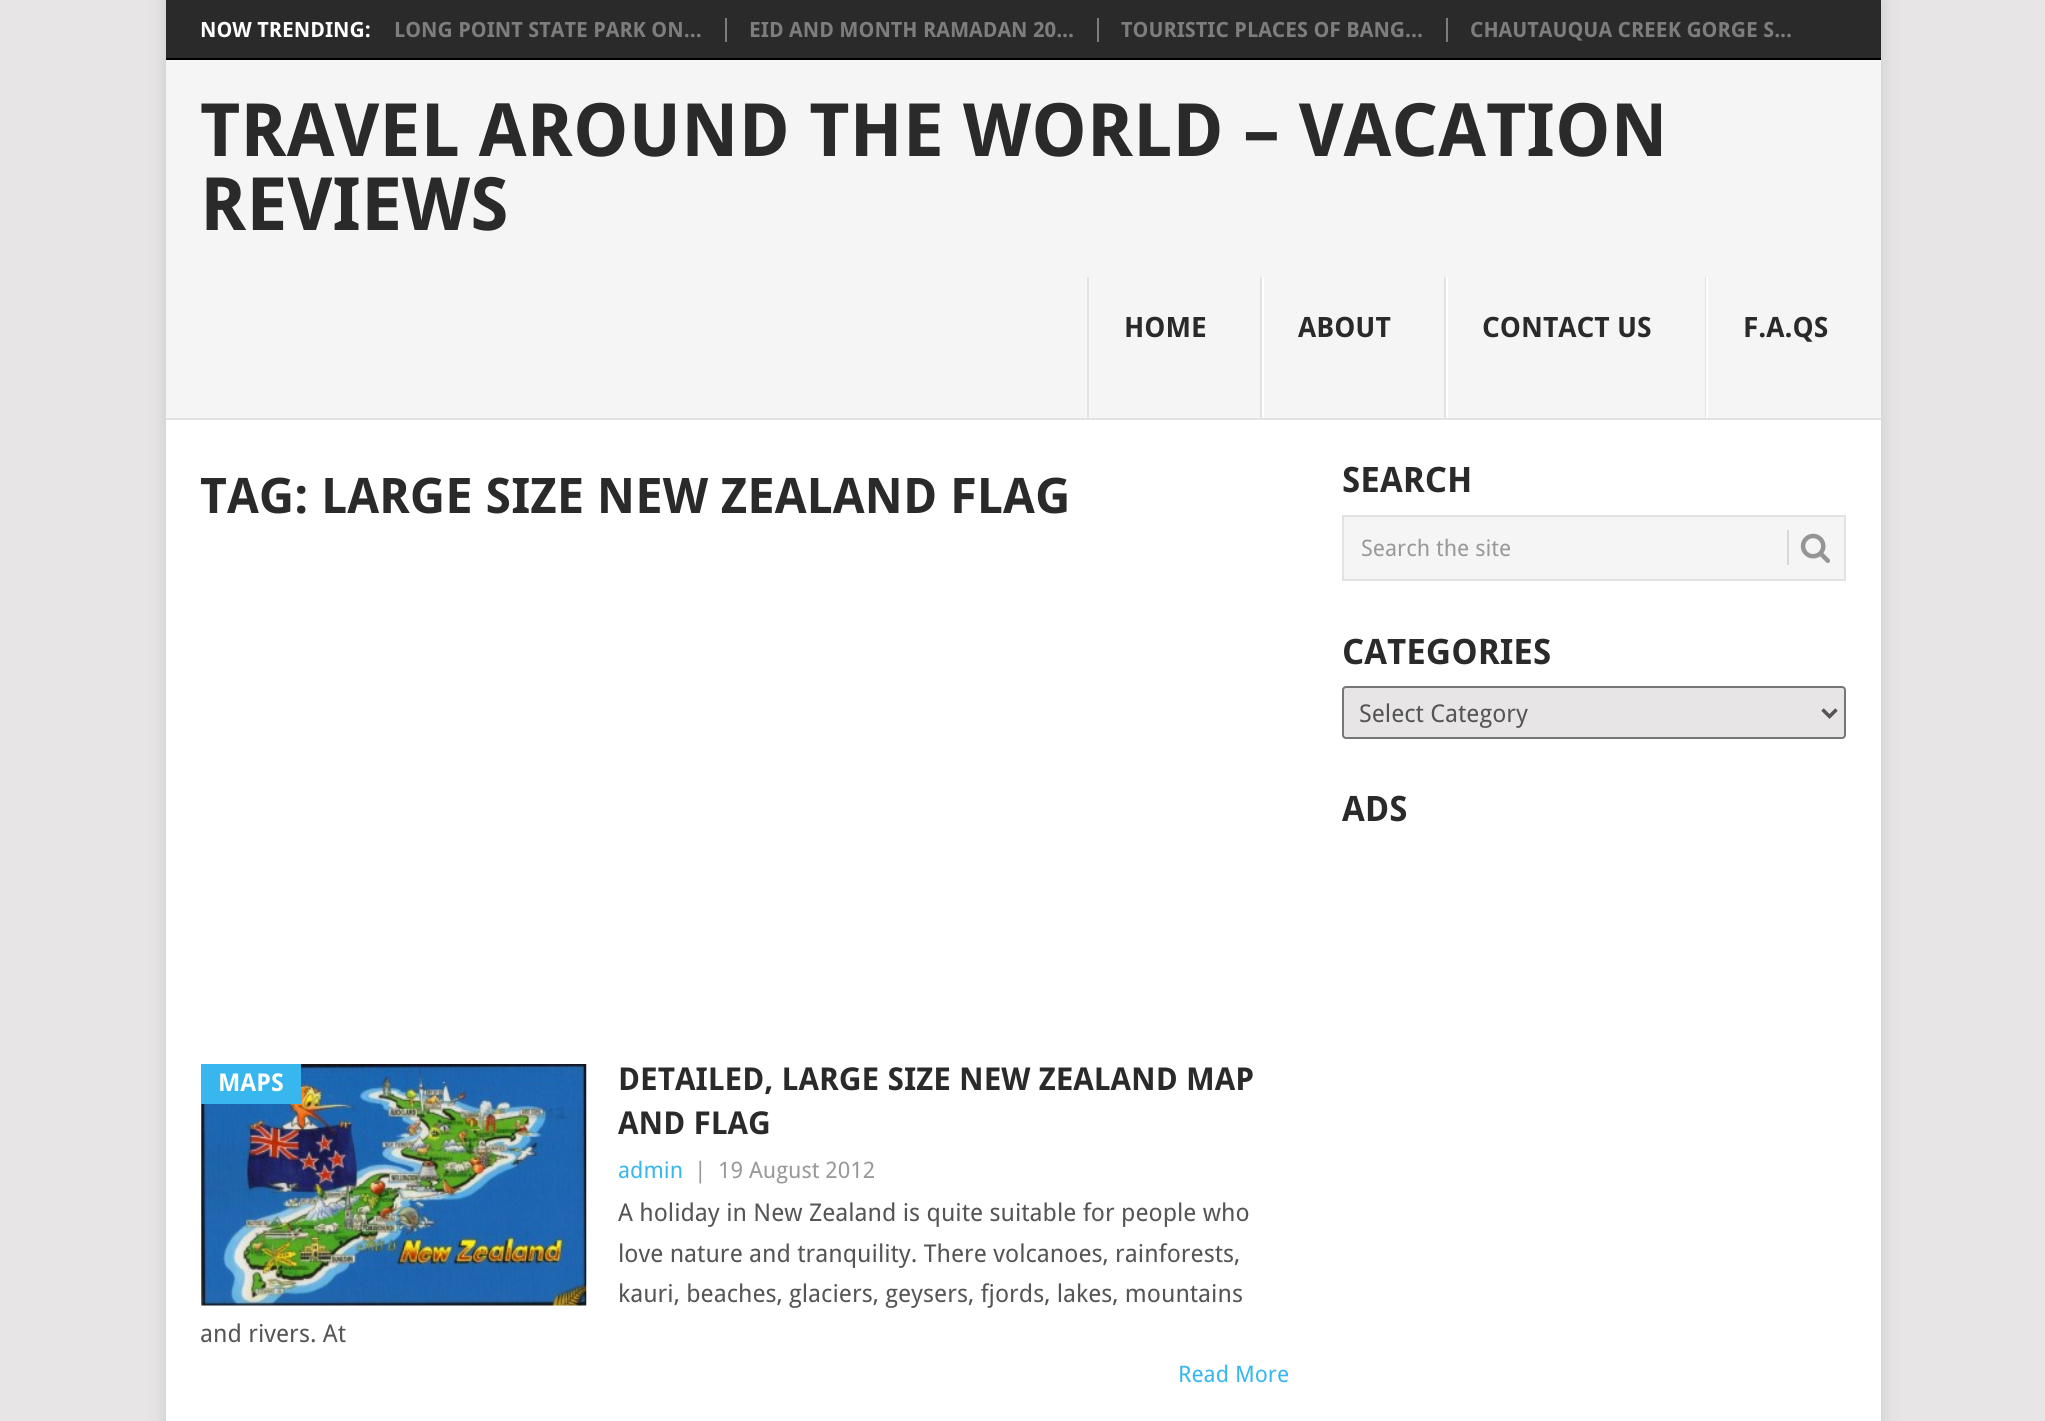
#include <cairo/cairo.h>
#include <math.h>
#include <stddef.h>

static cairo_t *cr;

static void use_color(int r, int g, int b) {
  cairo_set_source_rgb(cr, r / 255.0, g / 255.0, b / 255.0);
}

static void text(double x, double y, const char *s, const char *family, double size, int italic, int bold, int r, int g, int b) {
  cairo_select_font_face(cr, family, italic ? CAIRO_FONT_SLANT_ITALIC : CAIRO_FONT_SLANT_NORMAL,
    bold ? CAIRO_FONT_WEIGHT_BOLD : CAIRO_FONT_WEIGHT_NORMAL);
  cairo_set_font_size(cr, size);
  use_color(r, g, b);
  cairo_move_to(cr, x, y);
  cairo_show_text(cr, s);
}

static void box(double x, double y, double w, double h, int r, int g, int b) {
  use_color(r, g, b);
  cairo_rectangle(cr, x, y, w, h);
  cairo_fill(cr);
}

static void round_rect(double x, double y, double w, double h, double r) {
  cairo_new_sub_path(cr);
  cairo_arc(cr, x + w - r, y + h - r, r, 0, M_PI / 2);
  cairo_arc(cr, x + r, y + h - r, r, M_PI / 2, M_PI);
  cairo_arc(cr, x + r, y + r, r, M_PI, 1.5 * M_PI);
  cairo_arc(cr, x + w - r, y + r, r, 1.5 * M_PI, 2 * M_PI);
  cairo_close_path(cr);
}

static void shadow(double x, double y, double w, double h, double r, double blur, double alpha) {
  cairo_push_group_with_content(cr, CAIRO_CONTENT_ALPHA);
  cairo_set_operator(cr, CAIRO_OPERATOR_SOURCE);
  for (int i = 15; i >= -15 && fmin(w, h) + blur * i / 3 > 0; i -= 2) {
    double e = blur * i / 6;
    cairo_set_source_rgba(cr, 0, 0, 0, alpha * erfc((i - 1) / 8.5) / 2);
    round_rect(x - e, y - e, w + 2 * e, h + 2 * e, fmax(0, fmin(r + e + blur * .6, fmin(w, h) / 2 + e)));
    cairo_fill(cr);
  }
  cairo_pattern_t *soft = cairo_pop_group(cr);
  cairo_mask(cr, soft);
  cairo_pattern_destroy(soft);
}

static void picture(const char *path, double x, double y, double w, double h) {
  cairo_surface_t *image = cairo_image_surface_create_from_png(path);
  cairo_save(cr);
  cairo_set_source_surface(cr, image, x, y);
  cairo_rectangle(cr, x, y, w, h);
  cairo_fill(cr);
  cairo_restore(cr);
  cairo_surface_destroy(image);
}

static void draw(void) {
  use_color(231, 229, 230);
  cairo_paint(cr);
  use_color(50, 50, 50);
  shadow(166, 0, 1715, 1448, 0, 9, 0.17);
  box(166, 420, 1715, 1001, 255, 255, 255);
  box(166, 0, 1715, 58, 42, 42, 42);
  box(166, 58, 1715, 2, 0, 0, 0);
  box(725, 18, 2, 24, 125, 125, 125);
  box(1097, 18, 2, 24, 125, 125, 125);
  box(1446, 18, 2, 24, 125, 125, 125);
  box(166, 60, 1715, 358, 245, 245, 245);
  box(1260, 277, 2, 143, 226, 226, 226);
  box(1087, 277, 2, 143, 226, 226, 226);
  box(1444, 277, 2, 143, 226, 226, 226);
  box(1262, 277, 2, 143, 255, 255, 255);
  box(1705, 277, 1, 143, 226, 226, 226);
  box(1446, 277, 2, 143, 255, 255, 255);
  box(1706, 277, 2, 143, 255, 255, 255);
  box(166, 418, 1715, 2, 226, 226, 226);
  picture("img_01.png", 201, 1064, 386, 242);
  box(201, 1064, 100, 40, 56, 183, 238);
  use_color(245, 245, 245);
  cairo_rectangle(cr, 1343, 516, 502, 64);
  cairo_fill_preserve(cr);
  use_color(226, 226, 226);
  cairo_stroke(cr);
  box(1787, 530, 2, 35, 216, 216, 216);
  picture("img_02.png", 1800, 533, 30, 30);
  use_color(231, 229, 230);
  round_rect(1343, 687, 502, 51, 3);
  cairo_fill_preserve(cr);
  use_color(118, 118, 118);
  cairo_stroke(cr);
  cairo_new_path(cr);
  cairo_move_to(cr, 1822.5, 709.5);
  cairo_line_to(cr, 1829.5, 716.5);
  cairo_line_to(cr, 1836.5, 709.5);
  use_color(85, 85, 85);
  cairo_set_line_width(cr, 3.5);
  cairo_stroke(cr);
  text(200, 37, "NOW TRENDING:", "Droid Sans", 21, 0, 1, 255, 255, 255);
  text(394, 37, "LONG POINT STATE PARK ON...", "Droid Sans", 21, 0, 1, 125, 125, 125);
  text(749, 37, "EID AND MONTH RAMADAN 20...", "Droid Sans", 21, 0, 1, 125, 125, 125);
  text(1121, 37, "TOURISTIC PLACES OF BANG...", "Droid Sans", 21, 0, 1, 125, 125, 125);
  text(1470, 37, "CHAUTAUQUA CREEK GORGE S...", "Droid Sans", 21, 0, 1, 125, 125, 125);
  text(200, 156, "TRAVEL AROUND THE WORLD – VACATION", "Droid Sans", 73.5, 0, 1, 42, 42, 42);
  text(200, 230, "REVIEWS", "Droid Sans", 73.5, 0, 1, 42, 42, 42);
  text(1124, 337, "HOME", "Droid Sans", 28, 0, 1, 42, 42, 42);
  text(1298, 337, "ABOUT", "Droid Sans", 28, 0, 1, 42, 42, 42);
  text(1482, 337, "CONTACT US", "Droid Sans", 28, 0, 1, 42, 42, 42);
  text(1743, 337, "F.A.QS", "Droid Sans", 28, 0, 1, 42, 42, 42);
  text(200, 513, "TAG: LARGE SIZE NEW ZEALAND FLAG", "Droid Sans", 49, 0, 1, 42, 42, 42);
  text(218, 1091, "MAPS", "Droid Sans", 24.5, 0, 1, 255, 255, 255);
  text(618, 1090, "DETAILED, LARGE SIZE NEW ZEALAND MAP", "Droid Sans", 31.5, 0, 1, 42, 42, 42);
  text(618, 1134, "AND FLAG", "Droid Sans", 31.5, 0, 1, 42, 42, 42);
  text(618, 1178, "admin", "Droid Sans", 22.75, 0, 0, 56, 183, 238);
  text(694, 1178, "|", "Droid Sans", 22.75, 0, 0, 153, 153, 153);
  text(718, 1178, "19 August 2012", "Droid Sans", 22.75, 0, 0, 153, 153, 153);
  text(618, 1221, "A holiday in New Zealand is quite suitable for people who", "Droid Sans", 24.5, 0, 0, 85, 85, 85);
  text(618, 1262, "love nature and tranquility. There volcanoes, rainforests,", "Droid Sans", 24.5, 0, 0, 85, 85, 85);
  text(618, 1302, "kauri, beaches, glaciers, geysers, fjords, lakes, mountains", "Droid Sans", 24.5, 0, 0, 85, 85, 85);
  text(200, 1342, "and rivers. At", "Droid Sans", 24.5, 0, 0, 85, 85, 85);
  text(1178, 1382, "Read More", "Droid Sans", 22.75, 0, 0, 56, 183, 238);
  text(1342, 492, "SEARCH", "Droid Sans", 35, 0, 1, 42, 42, 42);
  text(1361, 556, "Search the site", "Droid Sans", 22.75, 0, 0, 153, 153, 153);
  text(1342, 664, "CATEGORIES", "Droid Sans", 35, 0, 1, 42, 42, 42);
  text(1359, 722, "Select Category", "Droid Sans", 24.5, 0, 0, 85, 85, 85);
  text(1342, 821, "ADS", "Droid Sans", 35, 0, 1, 42, 42, 42);
}

int main(void) {
  cairo_surface_t *surface = cairo_image_surface_create(CAIRO_FORMAT_RGB24, 2045, 1421);
  cr = cairo_create(surface);
  cairo_font_options_t *options = cairo_font_options_create();
  cairo_font_options_set_hint_metrics(options, CAIRO_HINT_METRICS_OFF);
  cairo_font_options_set_hint_style(options, CAIRO_HINT_STYLE_NONE);
  cairo_set_font_options(cr, options);
  cairo_set_miter_limit(cr, 4);
  draw();
  cairo_surface_write_to_png(surface, "out.png");
  cairo_font_options_destroy(options);
  cairo_destroy(cr);
  cairo_surface_destroy(surface);
  return 0;
}
